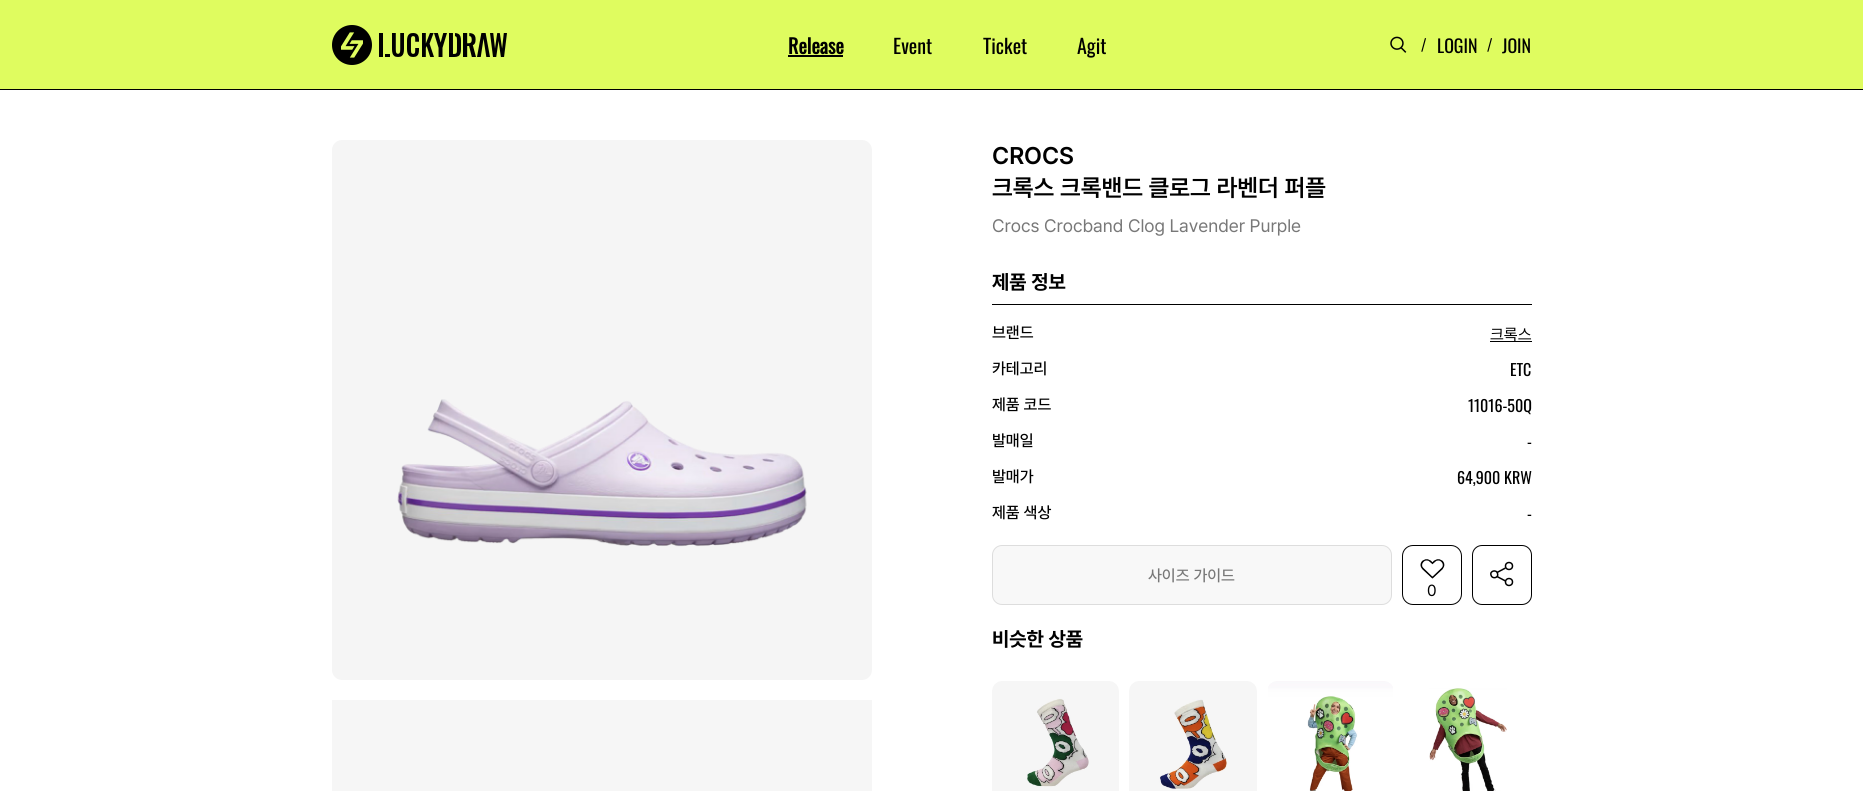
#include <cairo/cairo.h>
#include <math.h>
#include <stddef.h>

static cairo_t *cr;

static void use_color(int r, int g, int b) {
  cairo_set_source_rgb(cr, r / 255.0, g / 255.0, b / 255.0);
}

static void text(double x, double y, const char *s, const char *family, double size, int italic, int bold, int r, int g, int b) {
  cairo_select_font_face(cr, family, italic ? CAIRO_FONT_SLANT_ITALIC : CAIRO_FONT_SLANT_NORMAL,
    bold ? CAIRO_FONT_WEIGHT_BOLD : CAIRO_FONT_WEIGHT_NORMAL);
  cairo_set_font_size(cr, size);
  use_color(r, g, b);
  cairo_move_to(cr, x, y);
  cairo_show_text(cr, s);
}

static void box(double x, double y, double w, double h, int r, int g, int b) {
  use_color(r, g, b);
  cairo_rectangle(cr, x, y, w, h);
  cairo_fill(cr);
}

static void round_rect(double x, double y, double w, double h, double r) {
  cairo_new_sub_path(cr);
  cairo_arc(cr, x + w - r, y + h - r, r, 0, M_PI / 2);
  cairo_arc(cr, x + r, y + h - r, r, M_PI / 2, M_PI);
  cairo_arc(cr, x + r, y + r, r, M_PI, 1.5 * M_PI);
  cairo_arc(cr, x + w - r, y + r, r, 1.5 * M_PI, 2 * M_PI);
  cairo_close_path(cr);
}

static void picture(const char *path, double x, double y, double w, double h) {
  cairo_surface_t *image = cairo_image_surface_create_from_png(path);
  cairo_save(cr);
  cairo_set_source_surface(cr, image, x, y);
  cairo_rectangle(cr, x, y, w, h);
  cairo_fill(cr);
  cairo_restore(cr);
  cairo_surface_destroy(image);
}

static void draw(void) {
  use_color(255, 255, 255);
  cairo_paint(cr);
  box(0, 0, 1863, 89, 223, 252, 95);
  box(0, 89, 1863, 1, 0, 0, 0);
  picture("img_01.png", 332, 25, 175, 40);
  box(788, 55, 55, 2, 0, 0, 0);
  picture("img_02.png", 1390, 36, 17, 17);
  use_color(245, 245, 245);
  round_rect(332, 140, 540, 540, 10);
  cairo_fill(cr);
  picture("img_03.png", 397, 399, 410, 148);
  box(332, 700, 540, 91, 246, 246, 246);
  box(992, 304, 540, 1, 0, 0, 0);
  box(1490, 341, 42, 1, 0, 0, 0);
  use_color(248, 248, 248);
  round_rect(992.5, 545.5, 399, 59, 9.5);
  cairo_fill_preserve(cr);
  use_color(221, 221, 221);
  cairo_set_line_width(cr, 1);
  cairo_stroke(cr);
  round_rect(1472.5, 545.5, 59, 59, 9.5);
  use_color(0, 0, 0);
  cairo_stroke(cr);
  cairo_new_path(cr);
  cairo_move_to(cr, 1497.5, 573.5);
  cairo_curve_to(cr, 1499, 578, 1492, 579.5, 1491, 575);
  cairo_curve_to(cr, 1489.5, 571, 1496.5, 569, 1497.5, 573.5);
  cairo_close_path(cr);
  cairo_set_line_width(cr, 1.5);
  cairo_stroke(cr);
  cairo_arc(cr, 1509, 566, 3.5, 0, 2 * M_PI);
  cairo_stroke(cr);
  cairo_arc(cr, 1509, 582, 3.5, 0, 2 * M_PI);
  cairo_stroke(cr);
  cairo_new_path(cr);
  cairo_move_to(cr, 1497, 572.5);
  cairo_line_to(cr, 1505.5, 568);
  cairo_move_to(cr, 1497, 576.5);
  cairo_line_to(cr, 1505.5, 581);
  cairo_stroke(cr);
  round_rect(1402.5, 545.5, 59, 59, 10.5);
  cairo_set_line_width(cr, 1);
  cairo_stroke(cr);
  picture("img_04.png", 1420, 559, 25, 20);
  picture("img_05.png", 992, 681, 127, 110);
  picture("img_06.png", 1129, 681, 128, 110);
  picture("img_07.png", 1268, 681, 125, 110);
  picture("img_08.png", 1429, 688, 78, 103);
  text(788, 54, "Release", "Oswald", 20, 0, 1, 0, 0, 0);
  text(893, 54, "Event", "Oswald", 20, 0, 0, 0, 0, 0);
  text(983, 54, "Ticket", "Oswald", 20, 0, 0, 0, 0, 0);
  text(1077, 54, "Agit", "Oswald", 20, 0, 0, 0, 0, 0);
  text(1421, 50, "/", "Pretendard", 16, 0, 0, 0, 0, 0);
  text(1437, 53, "LOGIN", "Oswald", 18, 0, 0, 0, 0, 0);
  text(1487, 50, "/", "Pretendard", 16, 0, 0, 0, 0, 0);
  text(1502, 53, "JOIN", "Oswald", 18, 0, 0, 0, 0, 0);
  text(992, 164, "CROCS", "Pretendard SemiBold", 24, 0, 0, 0, 0, 0);
  text(992, 196, "크록스 크록밴드 클로그 라벤더 퍼플", "Pretendard SemiBold", 24, 0, 0, 0, 0, 0);
  text(992, 232, "Crocs Crocband Clog Lavender Purple", "Pretendard", 18, 0, 0, 120, 120, 120);
  text(992, 289, "제품 정보", "Pretendard", 20, 0, 1, 0, 0, 0);
  text(992, 338, "브랜드", "Pretendard Medium", 16, 0, 0, 0, 0, 0);
  text(1490, 340, "크록스", "Pretendard", 16, 0, 0, 0, 0, 0);
  text(992, 374, "카테고리", "Pretendard Medium", 16, 0, 0, 0, 0, 0);
  text(1510, 376, "ETC", "Oswald", 16, 0, 0, 0, 0, 0);
  text(992, 410, "제품 코드", "Pretendard Medium", 16, 0, 0, 0, 0, 0);
  text(1468, 412, "11016-50Q", "Oswald", 16, 0, 0, 0, 0, 0);
  text(992, 446, "발매일", "Pretendard Medium", 16, 0, 0, 0, 0, 0);
  text(1527, 448, "-", "Oswald", 16, 0, 0, 0, 0, 0);
  text(992, 482, "발매가", "Pretendard Medium", 16, 0, 0, 0, 0, 0);
  text(1457, 484, "64,900 KRW", "Oswald", 16, 0, 0, 0, 0, 0);
  text(992, 518, "제품 색상", "Pretendard Medium", 16, 0, 0, 0, 0, 0);
  text(1527, 520, "-", "Oswald", 16, 0, 0, 0, 0, 0);
  text(1148, 581, "사이즈 가이드", "Pretendard Medium", 16, 0, 0, 120, 120, 120);
  text(1427, 596, "0", "Pretendard", 16, 0, 0, 0, 0, 0);
  text(992, 646, "비슷한 상품", "Pretendard", 20, 0, 1, 0, 0, 0);
}

int main(void) {
  cairo_surface_t *surface = cairo_image_surface_create(CAIRO_FORMAT_RGB24, 1863, 791);
  cr = cairo_create(surface);
  cairo_font_options_t *options = cairo_font_options_create();
  cairo_font_options_set_hint_metrics(options, CAIRO_HINT_METRICS_OFF);
  cairo_font_options_set_hint_style(options, CAIRO_HINT_STYLE_NONE);
  cairo_set_font_options(cr, options);
  cairo_set_miter_limit(cr, 4);
  draw();
  cairo_surface_write_to_png(surface, "out.png");
  cairo_font_options_destroy(options);
  cairo_destroy(cr);
  cairo_surface_destroy(surface);
  return 0;
}
